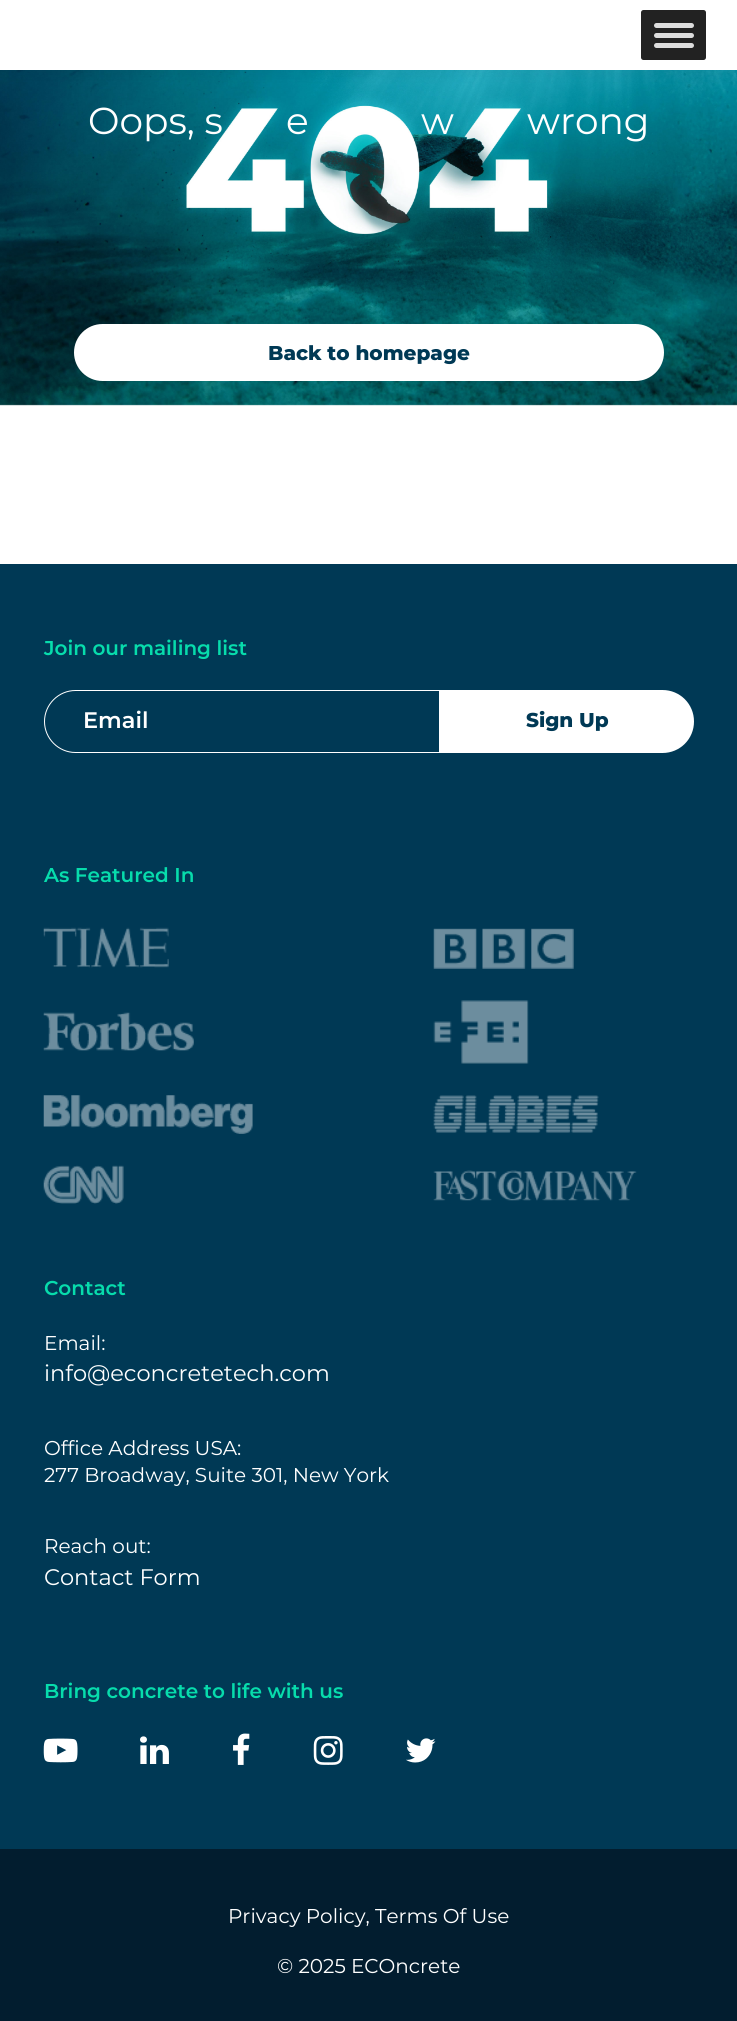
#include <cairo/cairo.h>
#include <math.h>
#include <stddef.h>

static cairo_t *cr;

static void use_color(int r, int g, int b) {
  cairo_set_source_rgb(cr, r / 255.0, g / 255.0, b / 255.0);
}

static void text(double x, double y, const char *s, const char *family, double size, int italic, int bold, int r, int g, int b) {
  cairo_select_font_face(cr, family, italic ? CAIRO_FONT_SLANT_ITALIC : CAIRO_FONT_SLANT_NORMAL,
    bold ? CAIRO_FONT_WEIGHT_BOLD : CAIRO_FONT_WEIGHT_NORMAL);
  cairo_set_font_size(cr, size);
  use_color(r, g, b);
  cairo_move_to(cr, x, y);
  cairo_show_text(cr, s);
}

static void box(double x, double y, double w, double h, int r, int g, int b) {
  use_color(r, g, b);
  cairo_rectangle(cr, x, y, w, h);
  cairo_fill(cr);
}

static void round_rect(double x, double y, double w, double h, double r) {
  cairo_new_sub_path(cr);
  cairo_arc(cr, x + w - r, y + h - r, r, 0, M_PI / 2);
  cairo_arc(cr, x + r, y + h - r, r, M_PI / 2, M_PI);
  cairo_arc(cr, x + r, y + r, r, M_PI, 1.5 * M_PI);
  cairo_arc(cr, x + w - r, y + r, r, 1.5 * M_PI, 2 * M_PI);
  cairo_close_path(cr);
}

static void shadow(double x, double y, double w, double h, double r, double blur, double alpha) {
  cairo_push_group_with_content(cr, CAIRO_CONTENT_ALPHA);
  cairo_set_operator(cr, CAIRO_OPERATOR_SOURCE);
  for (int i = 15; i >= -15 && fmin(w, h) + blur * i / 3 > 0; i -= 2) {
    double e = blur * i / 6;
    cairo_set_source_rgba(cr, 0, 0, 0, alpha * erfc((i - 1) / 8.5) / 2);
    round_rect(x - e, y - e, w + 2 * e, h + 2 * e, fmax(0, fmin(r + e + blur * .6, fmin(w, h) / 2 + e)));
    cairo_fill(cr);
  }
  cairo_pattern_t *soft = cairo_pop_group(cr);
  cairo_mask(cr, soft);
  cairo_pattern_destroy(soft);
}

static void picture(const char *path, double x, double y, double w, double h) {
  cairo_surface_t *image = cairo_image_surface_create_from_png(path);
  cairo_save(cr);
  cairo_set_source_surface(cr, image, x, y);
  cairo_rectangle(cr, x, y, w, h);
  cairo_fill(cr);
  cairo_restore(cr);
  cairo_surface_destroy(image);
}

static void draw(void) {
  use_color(255, 255, 255);
  cairo_paint(cr);
  picture("img_01.png", 0, 70, 737, 336);
  use_color(0, 0, 0);
  shadow(4, 4, 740, 72, 0, 6, 0.04);
  box(0, 0, 737, 70, 255, 255, 255);
  use_color(34, 34, 34);
  round_rect(641, 10, 65, 50, 2.5);
  cairo_fill(cr);
  use_color(221, 221, 221);
  round_rect(654, 23, 40, 5, 2.5);
  cairo_fill(cr);
  round_rect(654, 33, 40, 5, 2.5);
  cairo_fill(cr);
  round_rect(654, 43, 40, 5, 2.5);
  cairo_fill(cr);
  use_color(255, 255, 255);
  round_rect(75.5, 325.5, 587, 54, 27);
  cairo_fill_preserve(cr);
  cairo_set_line_width(cr, 3);
  cairo_stroke(cr);
  box(0, 564, 737, 1285, 0, 57, 85);
  cairo_new_path(cr);
  cairo_move_to(cr, 75.5, 690.5);
  cairo_line_to(cr, 439.5, 690.5);
  cairo_line_to(cr, 439.5, 752.5);
  cairo_line_to(cr, 75.5, 752.5);
  cairo_curve_to(cr, 58.5, 752.5, 44.5, 738.5, 44.5, 721.5);
  cairo_curve_to(cr, 44.5, 704.5, 58.5, 690.5, 75.5, 690.5);
  cairo_close_path(cr);
  use_color(255, 255, 255);
  cairo_set_line_width(cr, 1);
  cairo_stroke(cr);
  cairo_new_path(cr);
  cairo_move_to(cr, 440, 690);
  cairo_line_to(cr, 662.5, 690);
  cairo_curve_to(cr, 680, 690, 694, 704, 694, 721.5);
  cairo_curve_to(cr, 694, 739, 680, 753, 662.5, 753);
  cairo_line_to(cr, 440, 753);
  cairo_close_path(cr);
  cairo_fill(cr);
  picture("img_02.png", 43, 927, 126, 41);
  picture("img_03.png", 433, 928, 141, 41);
  picture("img_04.png", 43, 1012, 151, 39);
  picture("img_05.png", 433, 1000, 96, 64);
  picture("img_06.png", 43, 1095, 210, 39);
  picture("img_07.png", 433, 1095, 166, 38);
  picture("img_08.png", 43, 1165, 81, 39);
  picture("img_09.png", 433, 1170, 204, 31);
  picture("img_10.png", 43, 1738, 35, 25);
  picture("img_11.png", 140, 1736, 29, 28);
  picture("img_12.png", 233, 1733, 17, 32);
  picture("img_13.png", 313, 1736, 30, 29);
  picture("img_14.png", 406, 1738, 30, 25);
  box(0, 1849, 737, 172, 2, 29, 47);
  text(88, 134, "Oops, s", "Montserrat", 37.5, 0, 0, 255, 255, 255);
  text(286, 134, "e", "Montserrat", 37.5, 0, 0, 255, 255, 255);
  text(421, 134, "w", "Montserrat", 37.5, 0, 0, 255, 255, 255);
  text(527, 134, "wrong", "Montserrat", 37.5, 0, 0, 255, 255, 255);
  text(268, 360, "Back to homepage", "Montserrat ExtraBold", 20, 0, 0, 0, 57, 85);
  text(44, 655, "Join our mailing list", "Montserrat SemiBold", 20, 0, 0, 7, 220, 172);
  text(83, 728, "Email", "Montserrat SemiBold", 22.5, 0, 0, 255, 255, 255);
  text(526, 727, "Sign Up", "Montserrat ExtraBold", 20, 0, 0, 0, 57, 85);
  text(44, 882, "As Featured In", "Montserrat SemiBold", 20, 0, 0, 7, 220, 172);
  text(44, 1295, "Contact", "Montserrat SemiBold", 20, 0, 0, 7, 220, 172);
  text(44, 1350, "Email:", "Montserrat", 20, 0, 0, 255, 255, 255);
  text(44, 1381, "info@econcretetech.com", "Montserrat", 22.5, 0, 0, 255, 255, 255);
  text(44, 1455, "Office Address USA:", "Montserrat", 20, 0, 0, 255, 255, 255);
  text(44, 1482, "277 Broadway, Suite 301, New York", "Montserrat", 20, 0, 0, 255, 255, 255);
  text(44, 1553, "Reach out:", "Montserrat", 20, 0, 0, 255, 255, 255);
  text(44, 1585, "Contact Form", "Montserrat", 22.5, 0, 0, 255, 255, 255);
  text(44, 1698, "Bring concrete to life with us", "Montserrat SemiBold", 20, 0, 0, 7, 220, 172);
  text(228, 1923, "Privacy Policy, Terms Of Use", "Montserrat", 20, 0, 0, 255, 255, 255);
  text(277, 1973, "© 2025 ECOncrete", "Montserrat", 20, 0, 0, 255, 255, 255);
}

int main(void) {
  cairo_surface_t *surface = cairo_image_surface_create(CAIRO_FORMAT_RGB24, 737, 2021);
  cr = cairo_create(surface);
  cairo_font_options_t *options = cairo_font_options_create();
  cairo_font_options_set_hint_metrics(options, CAIRO_HINT_METRICS_OFF);
  cairo_font_options_set_hint_style(options, CAIRO_HINT_STYLE_NONE);
  cairo_set_font_options(cr, options);
  cairo_set_miter_limit(cr, 4);
  draw();
  cairo_surface_write_to_png(surface, "out.png");
  cairo_font_options_destroy(options);
  cairo_destroy(cr);
  cairo_surface_destroy(surface);
  return 0;
}
